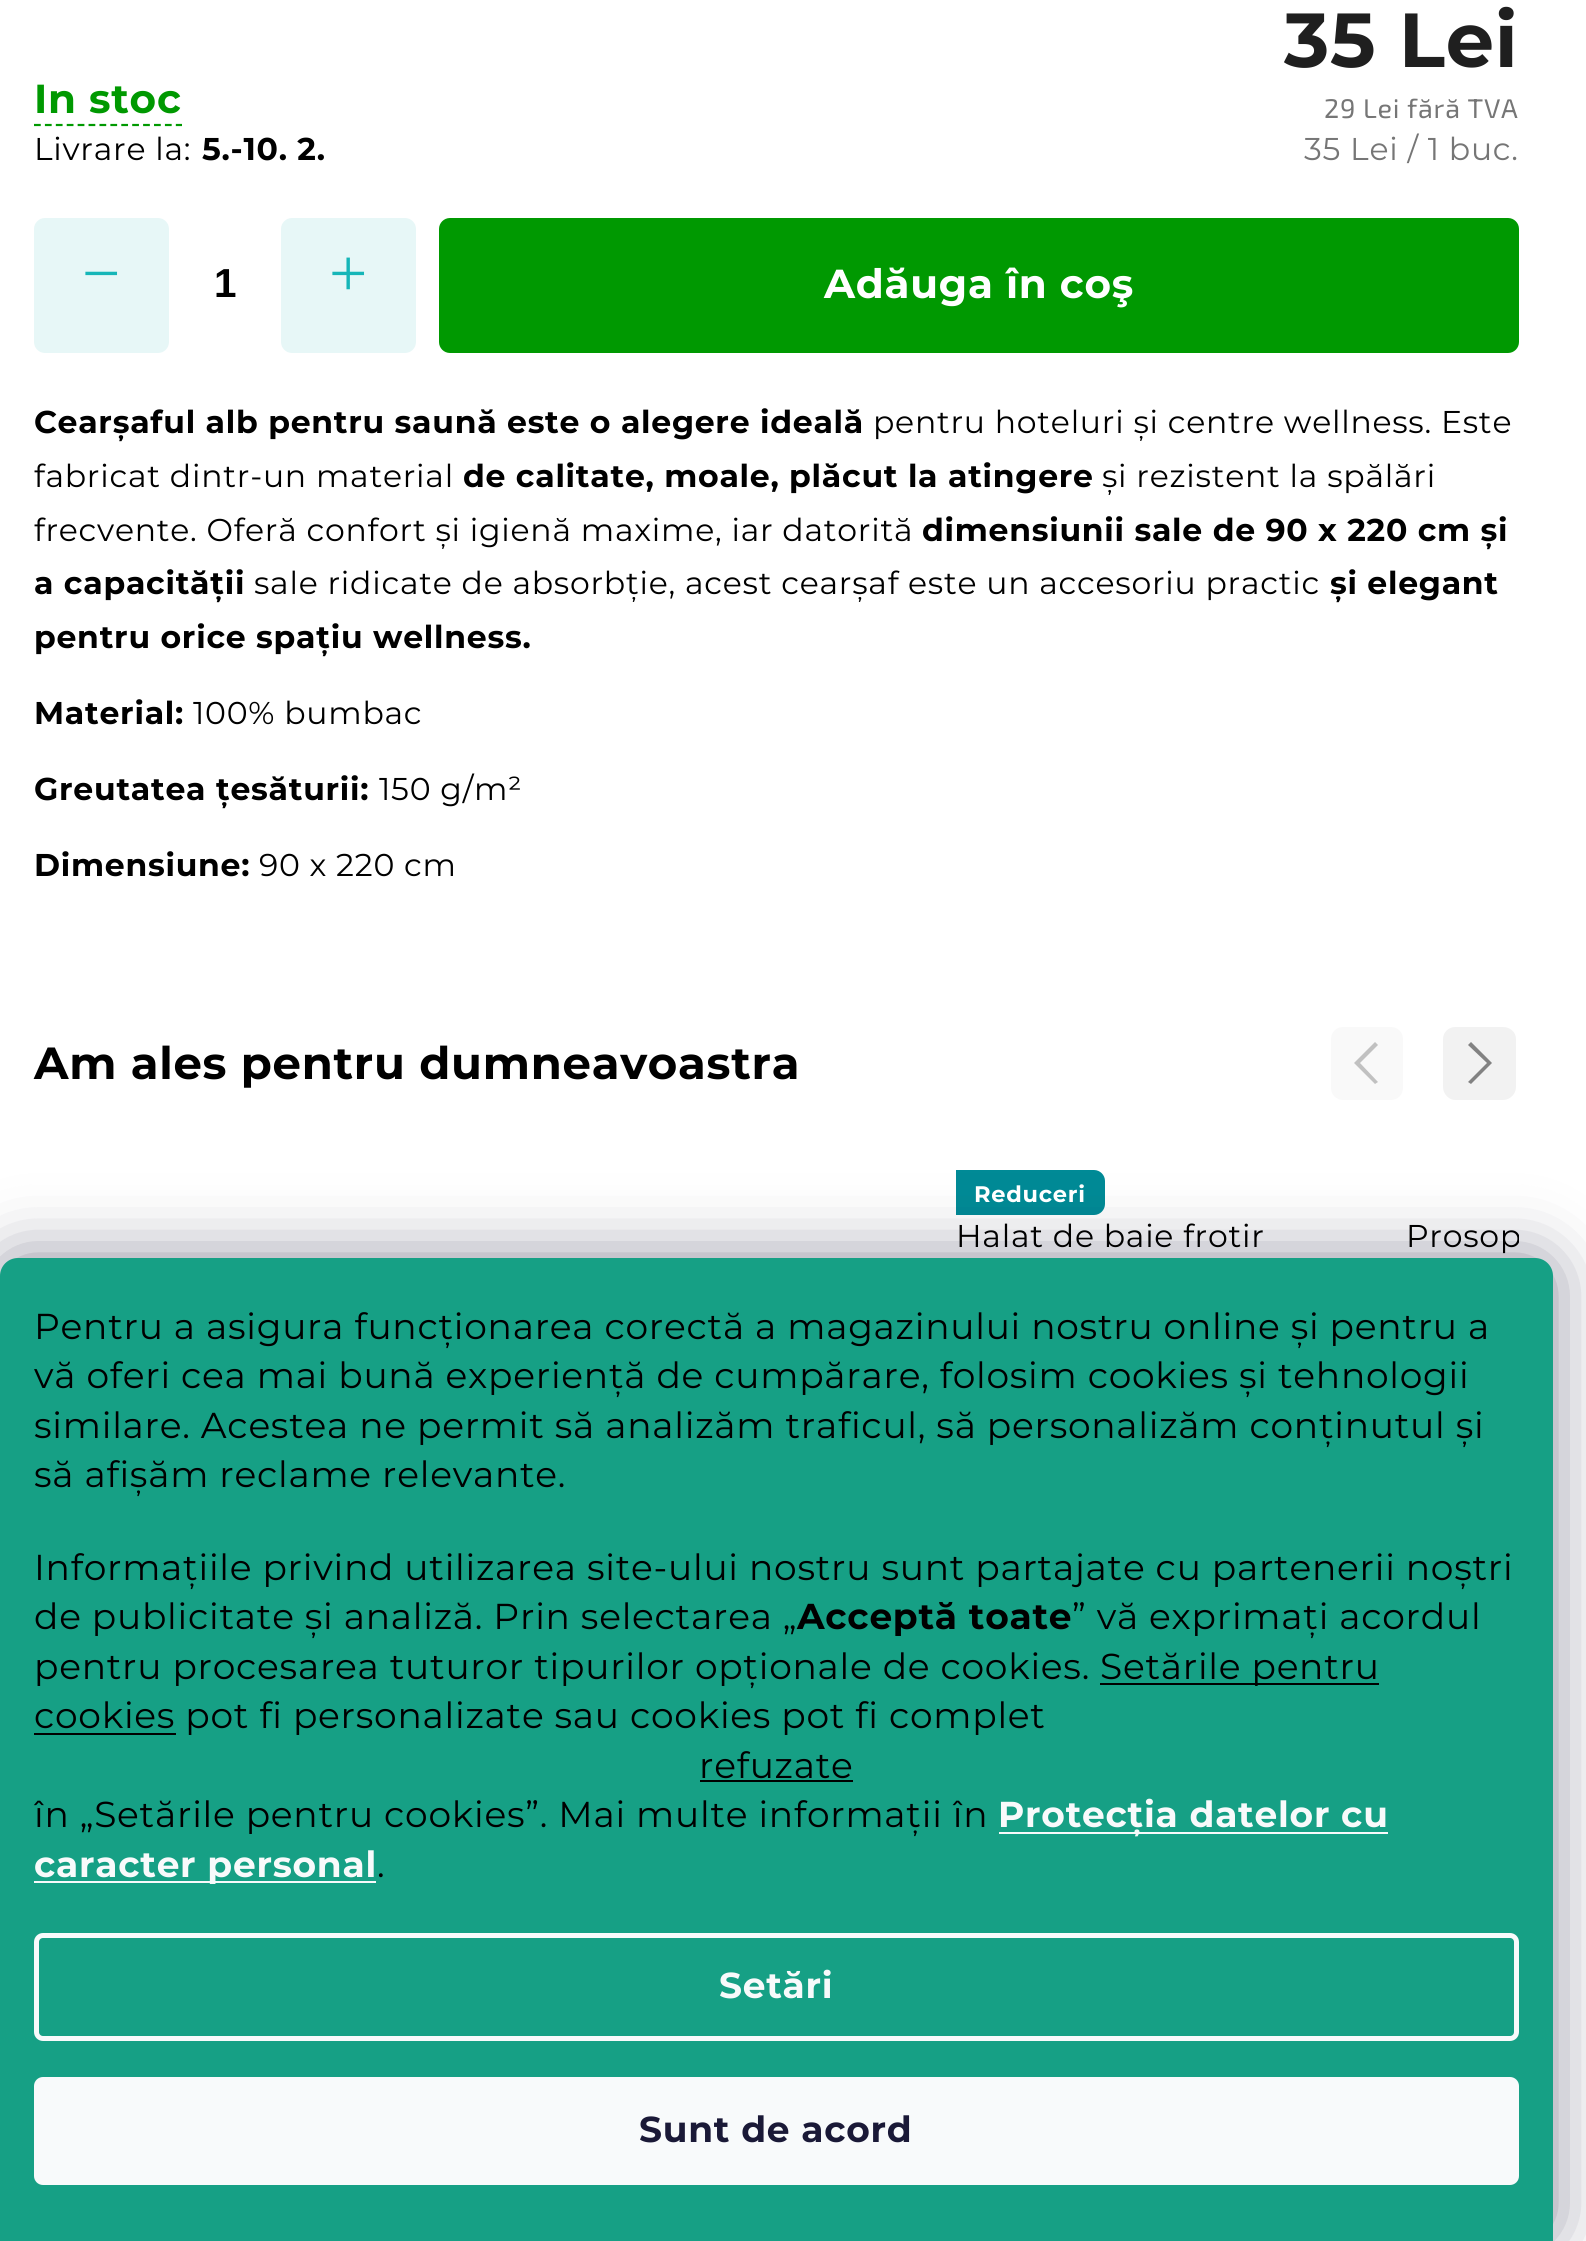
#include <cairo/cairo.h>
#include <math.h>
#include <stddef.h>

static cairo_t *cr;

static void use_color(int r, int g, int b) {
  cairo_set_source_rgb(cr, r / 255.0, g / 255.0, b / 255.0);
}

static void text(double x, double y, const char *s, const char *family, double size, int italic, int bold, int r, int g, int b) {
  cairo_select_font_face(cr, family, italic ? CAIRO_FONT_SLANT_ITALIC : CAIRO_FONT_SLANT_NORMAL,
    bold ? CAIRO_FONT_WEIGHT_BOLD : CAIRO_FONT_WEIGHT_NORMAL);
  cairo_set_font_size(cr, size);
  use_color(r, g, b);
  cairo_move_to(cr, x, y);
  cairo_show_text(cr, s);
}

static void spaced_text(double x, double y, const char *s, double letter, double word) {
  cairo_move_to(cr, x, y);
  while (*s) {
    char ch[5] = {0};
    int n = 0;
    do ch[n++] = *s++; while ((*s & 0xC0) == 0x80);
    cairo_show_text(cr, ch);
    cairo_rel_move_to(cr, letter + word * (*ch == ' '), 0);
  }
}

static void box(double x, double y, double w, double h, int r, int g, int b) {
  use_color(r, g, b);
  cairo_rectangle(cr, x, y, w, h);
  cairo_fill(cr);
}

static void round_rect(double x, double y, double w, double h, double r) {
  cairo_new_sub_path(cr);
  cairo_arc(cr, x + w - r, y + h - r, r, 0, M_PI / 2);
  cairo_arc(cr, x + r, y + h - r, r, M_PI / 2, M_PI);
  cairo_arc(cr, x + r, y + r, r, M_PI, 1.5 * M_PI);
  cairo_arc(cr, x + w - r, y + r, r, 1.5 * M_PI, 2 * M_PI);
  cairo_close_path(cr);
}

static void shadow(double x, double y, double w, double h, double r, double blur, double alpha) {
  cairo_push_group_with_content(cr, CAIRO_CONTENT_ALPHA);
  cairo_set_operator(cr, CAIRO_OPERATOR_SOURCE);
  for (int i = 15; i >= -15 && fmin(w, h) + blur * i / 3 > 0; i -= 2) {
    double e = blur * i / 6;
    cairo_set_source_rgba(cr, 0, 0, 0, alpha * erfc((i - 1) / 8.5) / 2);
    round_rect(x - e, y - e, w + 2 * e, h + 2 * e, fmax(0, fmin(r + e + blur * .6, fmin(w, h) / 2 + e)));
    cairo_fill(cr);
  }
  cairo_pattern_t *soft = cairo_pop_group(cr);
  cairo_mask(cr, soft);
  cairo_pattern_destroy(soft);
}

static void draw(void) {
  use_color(255, 255, 255);
  cairo_paint(cr);
  cairo_new_path(cr);
  cairo_move_to(cr, 34, 125);
  cairo_line_to(cr, 182, 125);
  use_color(0, 153, 1);
  cairo_set_line_width(cr, 2.2);
  cairo_set_dash(cr, (double[]){6.75, 4.16}, 2, 0);
  cairo_stroke(cr);
  use_color(231, 247, 247);
  round_rect(34, 218, 135, 135, 11);
  cairo_fill(cr);
  round_rect(281, 218, 135, 135, 11);
  cairo_fill(cr);
  use_color(0, 153, 1);
  round_rect(440, 219, 1078, 133, 10);
  cairo_fill_preserve(cr);
  cairo_set_line_width(cr, 2);
  cairo_set_dash(cr, NULL, 0, 0);
  cairo_stroke(cr);
  use_color(249, 249, 249);
  round_rect(1331, 1027, 72, 73, 12);
  cairo_fill(cr);
  use_color(193, 193, 193);
  cairo_set_fill_rule(cr, CAIRO_FILL_RULE_EVEN_ODD);
  cairo_new_path(cr);
  cairo_move_to(cr, 1378, 1082);
  cairo_line_to(cr, 1360, 1063);
  cairo_line_to(cr, 1378, 1045);
  cairo_line_to(cr, 1375, 1042);
  cairo_line_to(cr, 1354, 1063);
  cairo_line_to(cr, 1375, 1084);
  cairo_close_path(cr);
  cairo_fill(cr);
  use_color(242, 242, 242);
  cairo_set_fill_rule(cr, CAIRO_FILL_RULE_WINDING);
  cairo_new_path(cr);
  cairo_move_to(cr, 1503, 1100);
  cairo_line_to(cr, 1455, 1100);
  cairo_curve_to(cr, 1449, 1100, 1443, 1094, 1443, 1087);
  cairo_line_to(cr, 1443, 1039);
  cairo_curve_to(cr, 1443, 1032, 1449, 1027, 1455, 1027);
  cairo_line_to(cr, 1503, 1027);
  cairo_curve_to(cr, 1510, 1027, 1516, 1032, 1516, 1039);
  cairo_line_to(cr, 1516, 1087);
  cairo_curve_to(cr, 1516, 1094, 1510, 1100, 1503, 1100);
  cairo_close_path(cr);
  cairo_fill(cr);
  use_color(130, 130, 130);
  cairo_set_fill_rule(cr, CAIRO_FILL_RULE_EVEN_ODD);
  cairo_new_path(cr);
  cairo_move_to(cr, 1468, 1045);
  cairo_line_to(cr, 1487, 1063);
  cairo_line_to(cr, 1468, 1082);
  cairo_line_to(cr, 1471, 1084);
  cairo_line_to(cr, 1492, 1063);
  cairo_line_to(cr, 1471, 1042);
  cairo_close_path(cr);
  cairo_fill(cr);
  use_color(0, 138, 150);
  cairo_new_path(cr);
  cairo_move_to(cr, 956, 1170);
  cairo_line_to(cr, 1094, 1170);
  cairo_curve_to(cr, 1100, 1170, 1105, 1175, 1105, 1181);
  cairo_line_to(cr, 1105, 1204);
  cairo_curve_to(cr, 1105, 1210, 1100, 1215, 1094, 1215);
  cairo_line_to(cr, 956, 1215);
  cairo_close_path(cr);
  cairo_fill(cr);
  use_color(27, 25, 57);
  shadow(0, 1258, 1553, 983, 18, 34, 0.5);
  use_color(22, 160, 133);
  cairo_new_path(cr);
  cairo_move_to(cr, 18, 1258);
  cairo_line_to(cr, 1535, 1258);
  cairo_curve_to(cr, 1545, 1258, 1553, 1266, 1553, 1276);
  cairo_line_to(cr, 1553, 2241);
  cairo_line_to(cr, 0, 2241);
  cairo_line_to(cr, 0, 1276);
  cairo_curve_to(cr, 0, 1266, 8, 1258, 18, 1258);
  cairo_close_path(cr);
  cairo_fill(cr);
  box(1100, 1683, 279, 2, 0, 0, 0);
  box(34, 1733, 142, 2, 0, 0, 0);
  box(700, 1780, 153, 2, 0, 0, 0);
  box(999, 1832, 389, 2, 248, 250, 251);
  box(34, 1881, 342, 2, 248, 250, 251);
  round_rect(36.5, 1935.5, 1480, 103, 6.5);
  cairo_set_line_width(cr, 5);
  cairo_stroke(cr);
  round_rect(34, 2077, 1485, 108, 9);
  cairo_fill(cr);
  cairo_select_font_face(cr, "Montserrat", CAIRO_FONT_SLANT_NORMAL, CAIRO_FONT_WEIGHT_BOLD);
  cairo_set_font_size(cr, 40.5);
  use_color(0, 153, 1);
  spaced_text(34, 113, "In stoc", 0.75, 0);
  cairo_select_font_face(cr, "Montserrat", CAIRO_FONT_SLANT_NORMAL, CAIRO_FONT_WEIGHT_NORMAL);
  cairo_set_font_size(cr, 31.5);
  use_color(0, 0, 0);
  spaced_text(34, 160, "Livrare la:", 0.75, 0);
  cairo_select_font_face(cr, "Montserrat", CAIRO_FONT_SLANT_NORMAL, CAIRO_FONT_WEIGHT_BOLD);
  spaced_text(202, 160, "5.-10. 2.", 0.75, 0);
  cairo_set_font_size(cr, 76.5);
  use_color(31, 31, 31);
  spaced_text(1284, 67, "35 Lei", 0.75, 0);
  cairo_select_font_face(cr, "Exo 2", CAIRO_FONT_SLANT_NORMAL, CAIRO_FONT_WEIGHT_NORMAL);
  cairo_set_font_size(cr, 27);
  use_color(118, 118, 118);
  spaced_text(1324, 118, "29 Lei fără TVA", 0.75, 0);
  cairo_select_font_face(cr, "Montserrat", CAIRO_FONT_SLANT_NORMAL, CAIRO_FONT_WEIGHT_NORMAL);
  cairo_set_font_size(cr, 31.5);
  spaced_text(1304, 160, "35 Lei / 1 buc.", 0.75, 0);
  cairo_select_font_face(cr, "Liberation Serif", CAIRO_FONT_SLANT_NORMAL, CAIRO_FONT_WEIGHT_NORMAL);
  cairo_set_font_size(cr, 68);
  use_color(22, 182, 184);
  spaced_text(82, 296, "−", 0.75, 0);
  text(214, 297, "1", "Liberation Sans", 40.5, 0, 1, 0, 0, 0);
  cairo_select_font_face(cr, "Liberation Serif", CAIRO_FONT_SLANT_NORMAL, CAIRO_FONT_WEIGHT_NORMAL);
  cairo_set_font_size(cr, 68);
  use_color(22, 182, 184);
  spaced_text(329, 296, "+", 0.75, 0);
  cairo_select_font_face(cr, "Montserrat", CAIRO_FONT_SLANT_NORMAL, CAIRO_FONT_WEIGHT_BOLD);
  cairo_set_font_size(cr, 40.5);
  use_color(255, 255, 255);
  spaced_text(824, 298, "Adăuga în coş", 0.75, 0);
  cairo_set_font_size(cr, 31.5);
  use_color(0, 0, 0);
  spaced_text(34, 433, "Cearșaful alb pentru saună este o alegere ideală", 0.75, 0);
  cairo_select_font_face(cr, "Montserrat", CAIRO_FONT_SLANT_NORMAL, CAIRO_FONT_WEIGHT_NORMAL);
  spaced_text(873, 433, "pentru hoteluri și centre wellness. Este", 0.75, 0);
  spaced_text(34, 487, "fabricat dintr-un material", 0.75, 0);
  cairo_select_font_face(cr, "Montserrat", CAIRO_FONT_SLANT_NORMAL, CAIRO_FONT_WEIGHT_BOLD);
  spaced_text(463, 487, "de calitate, moale, plăcut la atingere", 0.75, 0);
  cairo_select_font_face(cr, "Montserrat", CAIRO_FONT_SLANT_NORMAL, CAIRO_FONT_WEIGHT_NORMAL);
  spaced_text(1102, 487, "și rezistent la spălări", 0.75, 0);
  spaced_text(34, 541, "frecvente. Oferă confort și igienă maxime, iar datorită", 0.75, 0);
  cairo_select_font_face(cr, "Montserrat", CAIRO_FONT_SLANT_NORMAL, CAIRO_FONT_WEIGHT_BOLD);
  spaced_text(922, 541, "dimensiunii sale de 90 x 220 cm și", 0.75, 0);
  spaced_text(34, 594, "a capacității", 0.75, 0);
  cairo_select_font_face(cr, "Montserrat", CAIRO_FONT_SLANT_NORMAL, CAIRO_FONT_WEIGHT_NORMAL);
  spaced_text(254, 594, "sale ridicate de absorbție, acest cearșaf este un accesoriu practic", 0.75, 0);
  cairo_select_font_face(cr, "Montserrat", CAIRO_FONT_SLANT_NORMAL, CAIRO_FONT_WEIGHT_BOLD);
  spaced_text(1330, 594, "și elegant", 0.75, 0);
  spaced_text(34, 648, "pentru orice spațiu wellness.", 0.75, 0);
  spaced_text(34, 724, "Material:", 0.75, 0);
  cairo_select_font_face(cr, "Montserrat", CAIRO_FONT_SLANT_NORMAL, CAIRO_FONT_WEIGHT_NORMAL);
  spaced_text(193, 724, "100% bumbac", 0.75, 0);
  cairo_select_font_face(cr, "Montserrat", CAIRO_FONT_SLANT_NORMAL, CAIRO_FONT_WEIGHT_BOLD);
  spaced_text(34, 800, "Greutatea țesăturii:", 0.75, 0);
  cairo_select_font_face(cr, "Montserrat", CAIRO_FONT_SLANT_NORMAL, CAIRO_FONT_WEIGHT_NORMAL);
  spaced_text(379, 800, "150 g/m²", 0.75, 0);
  cairo_select_font_face(cr, "Montserrat", CAIRO_FONT_SLANT_NORMAL, CAIRO_FONT_WEIGHT_BOLD);
  spaced_text(34, 876, "Dimensiune:", 0.75, 0);
  cairo_select_font_face(cr, "Montserrat", CAIRO_FONT_SLANT_NORMAL, CAIRO_FONT_WEIGHT_NORMAL);
  spaced_text(259, 876, "90 x 220 cm", 0.75, 0);
  cairo_select_font_face(cr, "Montserrat", CAIRO_FONT_SLANT_NORMAL, CAIRO_FONT_WEIGHT_BOLD);
  cairo_set_font_size(cr, 45);
  spaced_text(34, 1079, "Am ales pentru dumneavoastra", 0.75, 0);
  cairo_set_font_size(cr, 22.5);
  use_color(255, 255, 255);
  spaced_text(974, 1202, "Reduceri", 0.75, 0);
  cairo_select_font_face(cr, "Montserrat", CAIRO_FONT_SLANT_NORMAL, CAIRO_FONT_WEIGHT_NORMAL);
  cairo_set_font_size(cr, 31.5);
  use_color(0, 0, 0);
  spaced_text(956, 1247, "Halat de baie frotir", 0.75, 0);
  cairo_save(cr);
  cairo_set_fill_rule(cr, CAIRO_FILL_RULE_WINDING);
  cairo_rectangle(cr, 1406, 1215, 113, 88);
  cairo_clip(cr);
  spaced_text(1406, 1247, "Prosop", 0.75, 0);
  cairo_restore(cr);
  cairo_set_font_size(cr, 36);
  spaced_text(34, 1339, "Pentru a asigura funcționarea corectă a magazinului nostru online și pentru a", 0.75, 0);
  spaced_text(34, 1388, "vă oferi cea mai bună experiență de cumpărare, folosim cookies și tehnologii", 0.75, 0);
  spaced_text(34, 1438, "similare. Acestea ne permit să analizăm traficul, să personalizăm conținutul și", 0.75, 0);
  spaced_text(34, 1487, "să afișăm reclame relevante.", 0.75, 0);
  spaced_text(34, 1580, "Informațiile privind utilizarea site-ului nostru sunt partajate cu partenerii noștri", 0.75, 0);
  spaced_text(34, 1629, "de publicitate și analiză. Prin selectarea „", 0.75, 0);
  cairo_select_font_face(cr, "Montserrat", CAIRO_FONT_SLANT_NORMAL, CAIRO_FONT_WEIGHT_BOLD);
  spaced_text(797, 1629, "Acceptă toate", 0.75, 0);
  cairo_select_font_face(cr, "Montserrat", CAIRO_FONT_SLANT_NORMAL, CAIRO_FONT_WEIGHT_NORMAL);
  spaced_text(1072, 1629, "” vă exprimați acordul", 0.75, 0);
  spaced_text(34, 1679, "pentru procesarea tuturor tipurilor opționale de cookies.", 0.75, 0);
  spaced_text(1100, 1679, "Setările pentru", 0.75, 0);
  spaced_text(34, 1728, "cookies pot fi personalizate sau cookies pot fi complet", 0.75, 0);
  spaced_text(699, 1778, "refuzate", 0.75, 0);
  spaced_text(34, 1827, "în „Setările pentru cookies”. Mai multe informații în", 0.75, 0);
  cairo_select_font_face(cr, "Montserrat", CAIRO_FONT_SLANT_NORMAL, CAIRO_FONT_WEIGHT_BOLD);
  use_color(248, 250, 251);
  spaced_text(998, 1827, "Protecția datelor cu", 0.75, 0);
  spaced_text(34, 1877, "caracter personal", 0.75, 0);
  cairo_select_font_face(cr, "Montserrat", CAIRO_FONT_SLANT_NORMAL, CAIRO_FONT_WEIGHT_NORMAL);
  use_color(0, 0, 0);
  spaced_text(377, 1877, ".", 0.75, 0);
  cairo_select_font_face(cr, "Montserrat", CAIRO_FONT_SLANT_NORMAL, CAIRO_FONT_WEIGHT_BOLD);
  use_color(248, 250, 251);
  spaced_text(719, 1998, "Setări", 0.75, 0);
  use_color(26, 25, 55);
  spaced_text(639, 2142, "Sunt de acord", 0.75, 0);
}

int main(void) {
  cairo_surface_t *surface = cairo_image_surface_create(CAIRO_FORMAT_RGB24, 1586, 2241);
  cr = cairo_create(surface);
  cairo_font_options_t *options = cairo_font_options_create();
  cairo_font_options_set_hint_metrics(options, CAIRO_HINT_METRICS_OFF);
  cairo_font_options_set_hint_style(options, CAIRO_HINT_STYLE_NONE);
  cairo_set_font_options(cr, options);
  cairo_set_miter_limit(cr, 4);
  draw();
  cairo_surface_write_to_png(surface, "out.png");
  cairo_font_options_destroy(options);
  cairo_destroy(cr);
  cairo_surface_destroy(surface);
  return 0;
}
